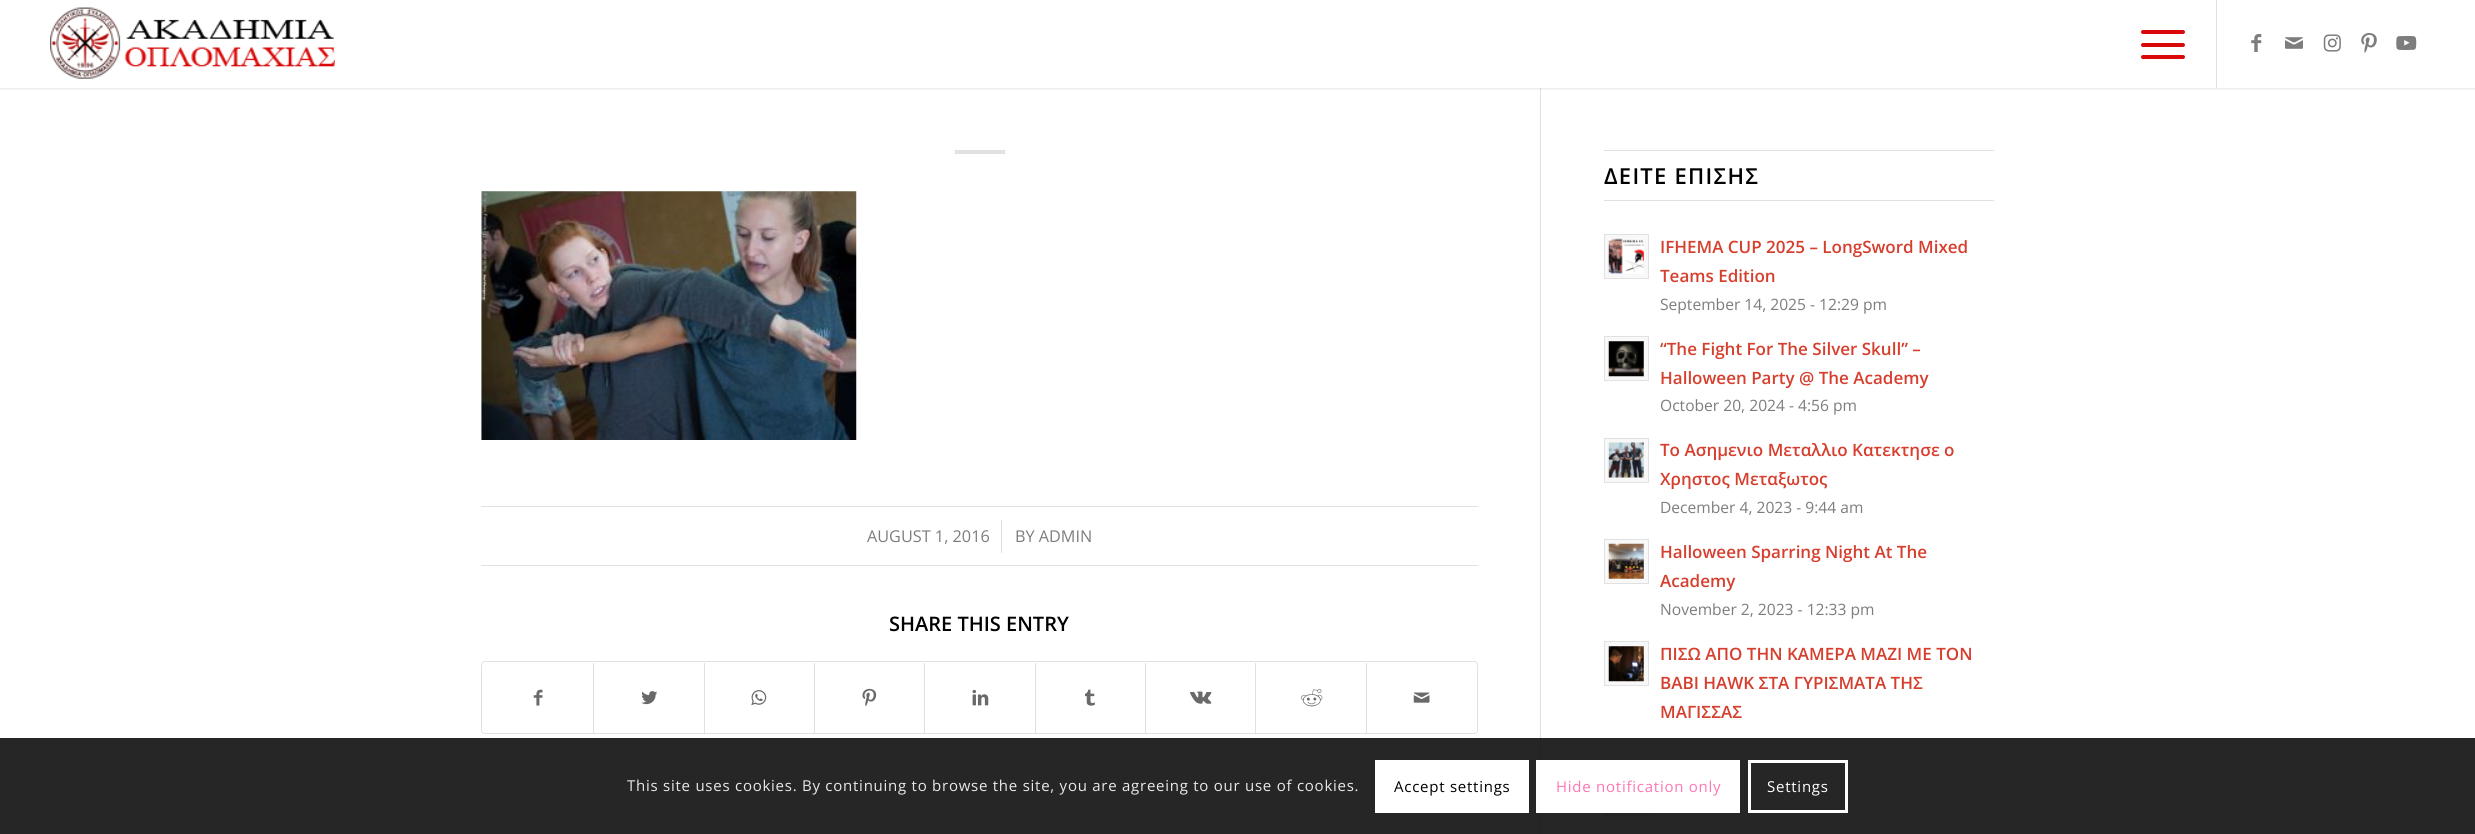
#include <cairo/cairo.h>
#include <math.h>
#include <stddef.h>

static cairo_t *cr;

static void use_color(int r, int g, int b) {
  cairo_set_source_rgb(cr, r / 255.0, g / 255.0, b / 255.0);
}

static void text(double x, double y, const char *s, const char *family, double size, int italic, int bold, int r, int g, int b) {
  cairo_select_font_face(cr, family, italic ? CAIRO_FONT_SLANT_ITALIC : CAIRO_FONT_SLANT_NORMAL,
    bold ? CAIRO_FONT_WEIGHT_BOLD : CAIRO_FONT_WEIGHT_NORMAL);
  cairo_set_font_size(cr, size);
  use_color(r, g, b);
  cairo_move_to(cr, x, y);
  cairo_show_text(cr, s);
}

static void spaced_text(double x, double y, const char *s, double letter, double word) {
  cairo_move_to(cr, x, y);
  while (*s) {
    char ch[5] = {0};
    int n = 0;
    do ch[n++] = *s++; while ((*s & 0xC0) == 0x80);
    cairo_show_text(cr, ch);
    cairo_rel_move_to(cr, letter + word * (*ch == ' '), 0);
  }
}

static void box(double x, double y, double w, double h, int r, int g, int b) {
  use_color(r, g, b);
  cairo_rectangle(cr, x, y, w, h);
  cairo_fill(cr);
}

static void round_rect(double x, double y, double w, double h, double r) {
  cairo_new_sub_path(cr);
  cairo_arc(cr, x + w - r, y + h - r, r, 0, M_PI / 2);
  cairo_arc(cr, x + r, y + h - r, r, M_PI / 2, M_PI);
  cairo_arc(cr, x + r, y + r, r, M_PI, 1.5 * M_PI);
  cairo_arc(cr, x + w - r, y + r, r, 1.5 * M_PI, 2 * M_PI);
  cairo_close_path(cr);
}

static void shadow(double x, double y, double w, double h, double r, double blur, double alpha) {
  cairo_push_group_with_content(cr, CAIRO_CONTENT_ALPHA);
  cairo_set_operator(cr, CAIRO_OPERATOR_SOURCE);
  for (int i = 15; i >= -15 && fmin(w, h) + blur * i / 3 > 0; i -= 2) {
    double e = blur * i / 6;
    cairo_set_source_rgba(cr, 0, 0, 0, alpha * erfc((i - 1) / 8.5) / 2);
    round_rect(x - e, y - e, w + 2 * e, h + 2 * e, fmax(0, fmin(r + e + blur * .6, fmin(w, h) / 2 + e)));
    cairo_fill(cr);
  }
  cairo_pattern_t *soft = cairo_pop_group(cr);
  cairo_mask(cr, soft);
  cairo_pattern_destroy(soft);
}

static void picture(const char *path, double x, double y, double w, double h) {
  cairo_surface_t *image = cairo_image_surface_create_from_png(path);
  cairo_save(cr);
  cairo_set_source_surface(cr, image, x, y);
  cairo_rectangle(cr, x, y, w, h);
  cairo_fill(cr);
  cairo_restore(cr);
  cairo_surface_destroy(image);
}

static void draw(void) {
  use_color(255, 255, 255);
  cairo_paint(cr);
  box(1540, 88, 1, 746, 225, 225, 225);
  use_color(0, 0, 0);
  shadow(-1, -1, 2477, 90, 0, 1, 0.1);
  box(0, 0, 2475, 88, 255, 255, 255);
  picture("img_01.png", 50, 7, 285, 72);
  box(2216, 0, 1, 88, 225, 225, 225);
  use_color(217, 9, 9);
  round_rect(2141, 43, 44, 4, 2);
  cairo_fill(cr);
  round_rect(2141, 30, 44, 4, 2);
  cairo_fill(cr);
  round_rect(2141, 55, 44, 4, 2);
  cairo_fill(cr);
  picture("img_02.png", 2251, 34, 11, 18);
  picture("img_03.png", 2285, 37, 18, 12);
  picture("img_04.png", 2323, 34, 18, 18);
  picture("img_05.png", 2361, 33, 16, 20);
  picture("img_06.png", 2396, 35, 21, 15);
  box(955, 150, 50, 4, 225, 225, 225);
  picture("img_07.png", 481, 191, 376, 249);
  box(481, 506, 997, 1, 225, 225, 225);
  box(481, 565, 997, 1, 225, 225, 225);
  box(1001, 520, 1, 33, 225, 225, 225);
  round_rect(481.5, 661.5, 996, 72, 3.5);
  cairo_set_line_width(cr, 1);
  cairo_stroke(cr);
  picture("img_08.png", 533, 689, 10, 17);
  box(593, 663, 1, 70, 225, 225, 225);
  picture("img_09.png", 641, 691, 17, 14);
  box(704, 663, 1, 70, 225, 225, 225);
  picture("img_10.png", 751, 690, 16, 16);
  box(814, 663, 1, 70, 225, 225, 225);
  picture("img_11.png", 862, 688, 15, 19);
  box(924, 663, 1, 70, 225, 225, 225);
  picture("img_12.png", 972, 689, 17, 17);
  box(1035, 663, 1, 70, 225, 225, 225);
  picture("img_13.png", 1085, 689, 10, 17);
  box(1145, 663, 1, 70, 225, 225, 225);
  picture("img_14.png", 1190, 691, 22, 13);
  box(1255, 663, 1, 70, 225, 225, 225);
  picture("img_15.png", 1301, 688, 22, 19);
  box(1366, 663, 1, 70, 225, 225, 225);
  picture("img_16.png", 1413, 692, 17, 11);
  box(1604, 150, 390, 1, 225, 225, 225);
  box(1604, 200, 390, 1, 225, 225, 225);
  use_color(248, 248, 248);
  cairo_rectangle(cr, 1604.5, 234.5, 44, 44);
  cairo_fill_preserve(cr);
  use_color(225, 225, 225);
  cairo_stroke(cr);
  picture("img_17.png", 1608, 238, 36, 36);
  use_color(248, 248, 248);
  cairo_rectangle(cr, 1604.5, 336.5, 44, 44);
  cairo_fill_preserve(cr);
  use_color(225, 225, 225);
  cairo_stroke(cr);
  picture("img_18.png", 1608, 341, 36, 36);
  use_color(248, 248, 248);
  cairo_rectangle(cr, 1604.5, 438.5, 44, 44);
  cairo_fill_preserve(cr);
  use_color(225, 225, 225);
  cairo_stroke(cr);
  picture("img_19.png", 1608, 442, 36, 36);
  use_color(248, 248, 248);
  cairo_rectangle(cr, 1604.5, 539.5, 44, 44);
  cairo_fill_preserve(cr);
  use_color(225, 225, 225);
  cairo_stroke(cr);
  picture("img_20.png", 1608, 543, 36, 36);
  use_color(248, 248, 248);
  cairo_rectangle(cr, 1604.5, 641.5, 44, 44);
  cairo_fill_preserve(cr);
  use_color(225, 225, 225);
  cairo_stroke(cr);
  picture("img_21.png", 1608, 646, 36, 36);
  box(1605, 813, 43, 2, 248, 248, 248);
  cairo_rectangle(cr, 1604.5, 771.5, 44, 44);
  use_color(225, 225, 225);
  cairo_stroke(cr);
  cairo_set_source_rgba(cr, 0, 0, 0, 0.85);
  cairo_rectangle(cr, 0, 738, 2475, 96);
  cairo_fill(cr);
  box(1375, 760, 154, 53, 255, 255, 255);
  box(1536, 760, 204, 53, 255, 255, 255);
  cairo_rectangle(cr, 1749.5, 761.5, 97, 50);
  cairo_set_line_width(cr, 3);
  cairo_stroke(cr);
  text(867, 542, "AUGUST 1, 2016", "Open Sans", 16.25, 0, 0, 125, 125, 125);
  text(1015, 542, "BY ADMIN", "Open Sans", 16.25, 0, 0, 125, 125, 125);
  text(889, 631, "SHARE THIS ENTRY", "Open Sans SemiBold", 20, 0, 0, 0, 0, 0);
  cairo_set_font_size(cr, 22);
  spaced_text(1604, 184, "ΔΕΙΤΕ ΕΠΙΣΗΣ", 1.25, 0);
  text(1660, 253, "IFHEMA CUP 2025 – LongSword Mixed", "Open Sans SemiBold", 17, 0, 0, 214, 62, 45);
  text(1660, 282, "Teams Edition", "Open Sans SemiBold", 17, 0, 0, 214, 62, 45);
  text(1660, 310, "September 14, 2025 - 12:29 pm", "Open Sans", 15.6, 0, 0, 125, 125, 125);
  text(1660, 355, "“The Fight For The Silver Skull” –", "Open Sans SemiBold", 17, 0, 0, 214, 62, 45);
  text(1660, 384, "Halloween Party @ The Academy", "Open Sans SemiBold", 17, 0, 0, 214, 62, 45);
  text(1660, 411, "October 20, 2024 - 4:56 pm", "Open Sans", 15.6, 0, 0, 125, 125, 125);
  text(1660, 456, "Το Ασημενιο Μεταλλιο Κατεκτησε ο", "Open Sans SemiBold", 17, 0, 0, 214, 62, 45);
  text(1660, 485, "Χρηστος Μεταξωτος", "Open Sans SemiBold", 17, 0, 0, 214, 62, 45);
  text(1660, 513, "December 4, 2023 - 9:44 am", "Open Sans", 15.6, 0, 0, 125, 125, 125);
  text(1660, 558, "Halloween Sparring Night At The", "Open Sans SemiBold", 17, 0, 0, 214, 62, 45);
  text(1660, 587, "Academy", "Open Sans SemiBold", 17, 0, 0, 214, 62, 45);
  text(1660, 615, "November 2, 2023 - 12:33 pm", "Open Sans", 15.6, 0, 0, 125, 125, 125);
  text(1660, 660, "ΠΙΣΩ ΑΠΟ ΤΗΝ ΚΑΜΕΡΑ ΜΑΖΙ ΜΕ ΤΟΝ", "Open Sans SemiBold", 17, 0, 0, 214, 62, 45);
  text(1660, 689, "BABI HAWK ΣΤΑ ΓΥΡΙΣΜΑΤΑ ΤΗΣ", "Open Sans SemiBold", 17, 0, 0, 214, 62, 45);
  text(1660, 718, "ΜΑΓΙΣΣΑΣ", "Open Sans SemiBold", 17, 0, 0, 214, 62, 45);
  cairo_select_font_face(cr, "Open Sans", CAIRO_FONT_SLANT_NORMAL, CAIRO_FONT_WEIGHT_NORMAL);
  cairo_set_font_size(cr, 15);
  use_color(233, 233, 233);
  spaced_text(627, 791, "This site uses cookies. By continuing to browse the site, you are agreeing to our use of cookies.", 0.75, 0);
  use_color(0, 0, 0);
  spaced_text(1394, 792, "Accept settings", 0.75, 0);
  use_color(255, 117, 181);
  spaced_text(1556, 792, "Hide notification only", 0.75, 0);
  use_color(255, 255, 255);
  spaced_text(1767, 792, "Settings", 0.75, 0);
}

int main(void) {
  cairo_surface_t *surface = cairo_image_surface_create(CAIRO_FORMAT_RGB24, 2475, 834);
  cr = cairo_create(surface);
  cairo_font_options_t *options = cairo_font_options_create();
  cairo_font_options_set_hint_metrics(options, CAIRO_HINT_METRICS_OFF);
  cairo_font_options_set_hint_style(options, CAIRO_HINT_STYLE_NONE);
  cairo_set_font_options(cr, options);
  cairo_set_miter_limit(cr, 4);
  draw();
  cairo_surface_write_to_png(surface, "out.png");
  cairo_font_options_destroy(options);
  cairo_destroy(cr);
  cairo_surface_destroy(surface);
  return 0;
}
